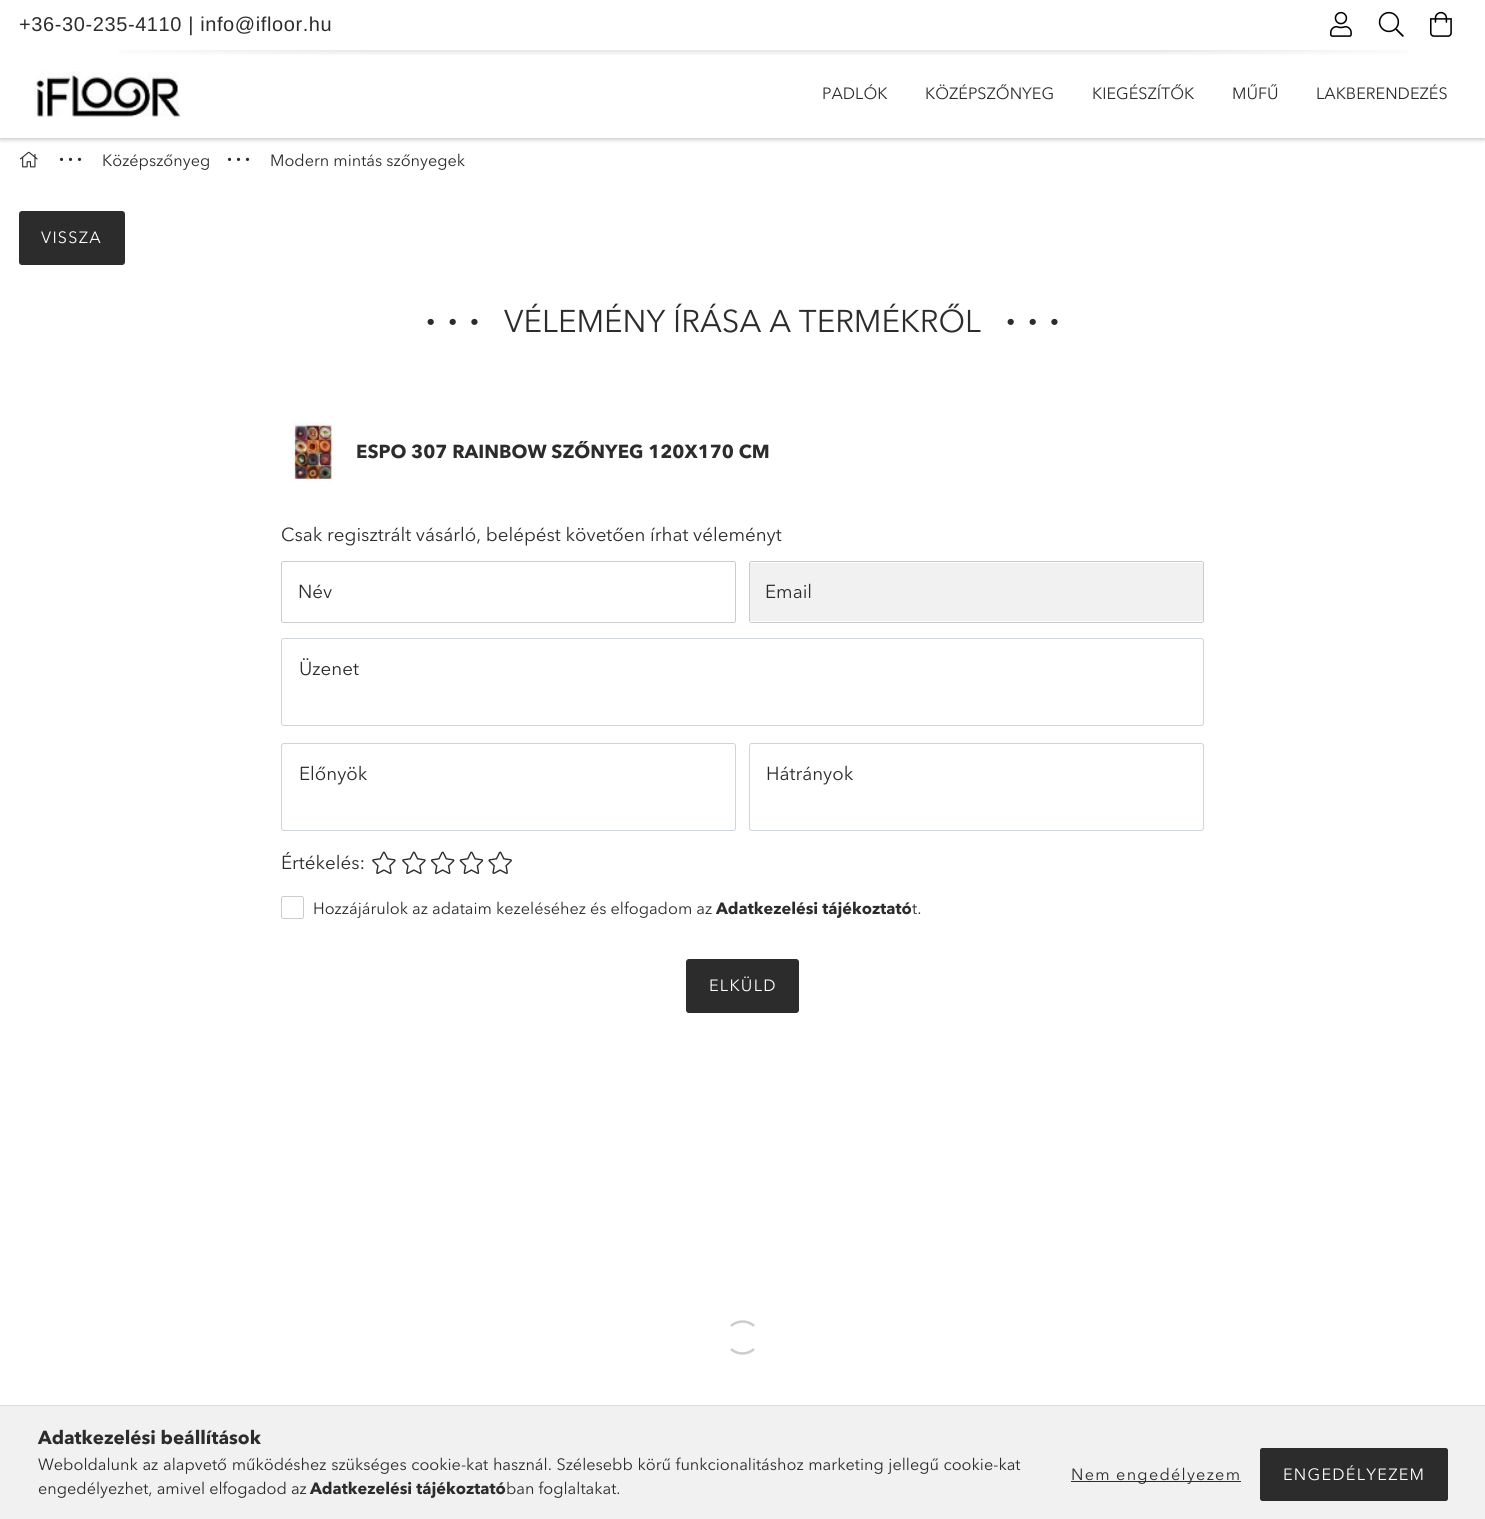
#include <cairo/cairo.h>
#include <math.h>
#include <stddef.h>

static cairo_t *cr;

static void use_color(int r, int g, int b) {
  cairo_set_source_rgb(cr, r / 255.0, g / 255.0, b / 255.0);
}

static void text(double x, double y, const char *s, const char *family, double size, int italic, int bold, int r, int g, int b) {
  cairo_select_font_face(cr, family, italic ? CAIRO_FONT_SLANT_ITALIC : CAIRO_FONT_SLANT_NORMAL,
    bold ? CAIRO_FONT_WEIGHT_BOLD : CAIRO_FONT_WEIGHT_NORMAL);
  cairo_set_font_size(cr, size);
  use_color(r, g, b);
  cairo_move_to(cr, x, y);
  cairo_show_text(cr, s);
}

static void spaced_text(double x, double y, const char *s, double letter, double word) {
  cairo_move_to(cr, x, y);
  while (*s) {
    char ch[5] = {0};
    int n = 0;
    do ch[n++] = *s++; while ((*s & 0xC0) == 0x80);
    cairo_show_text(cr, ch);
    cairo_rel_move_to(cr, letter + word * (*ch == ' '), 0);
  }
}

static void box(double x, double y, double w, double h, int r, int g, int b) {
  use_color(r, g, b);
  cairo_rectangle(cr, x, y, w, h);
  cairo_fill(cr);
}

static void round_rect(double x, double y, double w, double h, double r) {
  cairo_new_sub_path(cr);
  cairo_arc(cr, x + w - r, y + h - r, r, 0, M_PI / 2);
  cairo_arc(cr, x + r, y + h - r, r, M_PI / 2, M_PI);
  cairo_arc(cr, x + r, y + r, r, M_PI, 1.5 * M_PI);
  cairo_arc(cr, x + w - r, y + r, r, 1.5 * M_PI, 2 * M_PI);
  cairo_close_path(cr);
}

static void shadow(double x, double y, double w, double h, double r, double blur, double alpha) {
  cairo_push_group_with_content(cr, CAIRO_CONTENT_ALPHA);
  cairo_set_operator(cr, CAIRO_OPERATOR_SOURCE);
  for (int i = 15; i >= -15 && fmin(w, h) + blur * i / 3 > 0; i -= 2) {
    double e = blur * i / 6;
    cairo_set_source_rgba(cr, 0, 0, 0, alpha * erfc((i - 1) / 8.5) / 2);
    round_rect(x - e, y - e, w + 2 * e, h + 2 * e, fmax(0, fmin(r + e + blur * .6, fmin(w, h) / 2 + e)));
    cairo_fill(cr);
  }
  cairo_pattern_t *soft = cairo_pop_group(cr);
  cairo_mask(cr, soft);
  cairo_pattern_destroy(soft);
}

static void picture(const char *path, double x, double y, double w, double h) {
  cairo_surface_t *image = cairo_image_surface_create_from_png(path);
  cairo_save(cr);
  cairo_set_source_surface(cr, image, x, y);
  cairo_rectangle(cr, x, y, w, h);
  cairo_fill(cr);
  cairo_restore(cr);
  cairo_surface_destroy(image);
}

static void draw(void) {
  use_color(255, 255, 255);
  cairo_paint(cr);
  use_color(0, 0, 0);
  shadow(0, 3, 1485, 137, 0, 2, 0.2);
  box(0, 0, 1485, 138, 255, 255, 255);
  picture("img_01.png", 1330, 11, 22, 26);
  picture("img_02.png", 1378, 11, 26, 26);
  picture("img_03.png", 1430, 11, 22, 26);
  picture("img_04.png", 119, 50, 1289, 5);
  picture("img_05.png", 34, 71, 147, 46);
  picture("img_06.png", 19, 151, 19, 17);
  use_color(44, 44, 44);
  round_rect(19.5, 211.5, 105, 53, 2.5);
  cairo_fill_preserve(cr);
  cairo_set_line_width(cr, 1);
  cairo_stroke(cr);
  picture("img_07.png", 291, 421, 42, 61);
  round_rect(281.5, 561.5, 454, 61, 2);
  use_color(204, 204, 204);
  cairo_stroke(cr);
  use_color(241, 241, 241);
  round_rect(750, 563, 453, 58, 1);
  cairo_fill(cr);
  round_rect(749.5, 561.5, 454, 61, 2);
  use_color(204, 204, 204);
  cairo_stroke(cr);
  round_rect(281.5, 638.5, 922, 87, 2.5);
  use_color(206, 212, 218);
  cairo_stroke(cr);
  round_rect(281.5, 743.5, 454, 87, 2.5);
  cairo_stroke(cr);
  round_rect(749.5, 743.5, 454, 87, 2.5);
  cairo_stroke(cr);
  use_color(255, 255, 255);
  round_rect(750, 744, 439, 60, 3);
  cairo_fill(cr);
  picture("img_08.png", 372, 851, 24, 23);
  picture("img_08.png", 402, 851, 24, 23);
  picture("img_09.png", 430, 851, 25, 23);
  picture("img_10.png", 459, 851, 25, 23);
  picture("img_11.png", 488, 851, 24, 23);
  round_rect(281.5, 896.5, 22, 22, 2);
  use_color(204, 204, 204);
  cairo_stroke(cr);
  use_color(44, 44, 44);
  round_rect(686.5, 959.5, 112, 53, 2.5);
  cairo_fill_preserve(cr);
  cairo_stroke(cr);
  cairo_new_path(cr);
  cairo_move_to(cr, 731, 1326);
  cairo_curve_to(cr, 737.5, 1320, 747.5, 1320, 754, 1326);
  cairo_move_to(cr, 754, 1349);
  cairo_curve_to(cr, 747.5, 1355, 737.5, 1355, 731, 1349);
  use_color(204, 204, 204);
  cairo_set_line_width(cr, 2.5);
  cairo_stroke(cr);
  box(0, 1406, 1485, 113, 241, 241, 241);
  box(0, 1405, 1485, 1, 221, 221, 221);
  box(1071, 1481, 170, 1, 44, 44, 44);
  round_rect(1260.5, 1448.5, 187, 52, 2);
  cairo_fill_preserve(cr);
  cairo_set_line_width(cr, 1);
  cairo_stroke(cr);
  cairo_select_font_face(cr, "Liberation Sans", CAIRO_FONT_SLANT_NORMAL, CAIRO_FONT_WEIGHT_NORMAL);
  cairo_set_font_size(cr, 20);
  spaced_text(19, 31, "+36-30-235-4110 | info@ifloor.hu", 0.6, 0);
  text(822, 99, "PADLÓK", "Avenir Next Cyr", 16.25, 0, 0, 44, 44, 44);
  text(925, 99, "KÖZÉPSZŐNYEG", "Avenir Next Cyr", 16.25, 0, 0, 44, 44, 44);
  text(1092, 99, "KIEGÉSZÍTŐK", "Avenir Next Cyr", 16.25, 0, 0, 44, 44, 44);
  text(1232, 99, "MŰFŰ", "Avenir Next Cyr", 16.25, 0, 0, 44, 44, 44);
  text(1316, 99, "LAKBERENDEZÉS", "Avenir Next Cyr", 16.25, 0, 0, 44, 44, 44);
  cairo_select_font_face(cr, "Liberation Serif", CAIRO_FONT_SLANT_NORMAL, CAIRO_FONT_WEIGHT_BOLD);
  cairo_set_font_size(cr, 20);
  spaced_text(59, 166, "∙∙∙", 4, 0);
  text(102, 166, "Középszőnyeg", "Avenir Next Cyr", 16.25, 0, 0, 44, 44, 44);
  cairo_select_font_face(cr, "Liberation Serif", CAIRO_FONT_SLANT_NORMAL, CAIRO_FONT_WEIGHT_BOLD);
  cairo_set_font_size(cr, 20);
  spaced_text(227, 166, "∙∙∙", 4, 0);
  text(270, 166, "Modern mintás szőnyegek", "Avenir Next Cyr", 16.25, 0, 0, 44, 44, 44);
  use_color(255, 255, 255);
  spaced_text(41, 243, "VISSZA", 1.25, 0);
  cairo_select_font_face(cr, "Avenir Next Cyr", CAIRO_FONT_SLANT_NORMAL, CAIRO_FONT_WEIGHT_BOLD);
  cairo_set_font_size(cr, 31.25);
  use_color(44, 44, 44);
  spaced_text(426, 331, "∙∙∙", 12.5, 0);
  text(504, 332, "VÉLEMÉNY ÍRÁSA A TERMÉKRŐL", "Avenir Next Cyr", 31.25, 0, 0, 44, 44, 44);
  cairo_select_font_face(cr, "Avenir Next Cyr", CAIRO_FONT_SLANT_NORMAL, CAIRO_FONT_WEIGHT_BOLD);
  spaced_text(1006, 331, "∙∙∙", 12.5, 0);
  text(356, 458, "ESPO 307 RAINBOW SZŐNYEG 120X170 CM", "Avenir Next Cyr", 18.75, 0, 1, 44, 44, 44);
  text(281, 541, "Csak regisztrált vásárló, belépést követően írhat véleményt", "Avenir Next Cyr", 18.75, 0, 0, 44, 44, 44);
  text(298, 598, "Név", "Avenir Next Cyr", 18.75, 0, 0, 44, 44, 44);
  text(765, 598, "Email", "Avenir Next Cyr", 18.75, 0, 0, 44, 44, 44);
  text(299, 675, "Üzenet", "Avenir Next Cyr", 18.75, 0, 0, 44, 44, 44);
  text(299, 780, "Előnyök", "Avenir Next Cyr", 18.75, 0, 0, 44, 44, 44);
  text(766, 780, "Hátrányok", "Avenir Next Cyr", 18.75, 0, 0, 44, 44, 44);
  text(281, 869, "Értékelés:", "Avenir Next Cyr", 18.75, 0, 0, 44, 44, 44);
  text(313, 914, "Hozzájárulok az adataim kezeléséhez és elfogadom az", "Avenir Next Cyr", 16.25, 0, 0, 44, 44, 44);
  text(716, 914, "Adatkezelési tájékoztató", "Avenir Next Cyr", 16.25, 0, 1, 44, 44, 44);
  text(912, 914, "t.", "Avenir Next Cyr", 16.25, 0, 0, 44, 44, 44);
  use_color(255, 255, 255);
  spaced_text(709, 991, "ELKÜLD", 1.25, 0);
  text(38, 1444, "Adatkezelési beállítások", "Avenir Next Cyr", 18.75, 0, 1, 44, 44, 44);
  cairo_select_font_face(cr, "Avenir Next Cyr", CAIRO_FONT_SLANT_NORMAL, CAIRO_FONT_WEIGHT_NORMAL);
  cairo_set_font_size(cr, 16.25);
  spaced_text(38, 1470, "Weboldalunk az alapvető működéshez szükséges cookie-kat használ. Szélesebb körű funkcionalitáshoz marketing jellegű cookie-kat", 0, 0.6);
  text(38, 1494, "engedélyezhet, amivel elfogadod az", "Avenir Next Cyr", 16.25, 0, 0, 44, 44, 44);
  text(310, 1494, "Adatkezelési tájékoztató", "Avenir Next Cyr", 16.25, 0, 1, 44, 44, 44);
  text(506, 1494, "ban foglaltakat.", "Avenir Next Cyr", 16.25, 0, 0, 44, 44, 44);
  spaced_text(1071, 1480, "Nem engedélyezem", 1.25, 0);
  use_color(255, 255, 255);
  spaced_text(1283, 1480, "ENGEDÉLYEZEM", 1.25, 0);
}

int main(void) {
  cairo_surface_t *surface = cairo_image_surface_create(CAIRO_FORMAT_RGB24, 1485, 1519);
  cr = cairo_create(surface);
  cairo_font_options_t *options = cairo_font_options_create();
  cairo_font_options_set_hint_metrics(options, CAIRO_HINT_METRICS_OFF);
  cairo_font_options_set_hint_style(options, CAIRO_HINT_STYLE_NONE);
  cairo_set_font_options(cr, options);
  cairo_set_miter_limit(cr, 4);
  draw();
  cairo_surface_write_to_png(surface, "out.png");
  cairo_font_options_destroy(options);
  cairo_destroy(cr);
  cairo_surface_destroy(surface);
  return 0;
}
